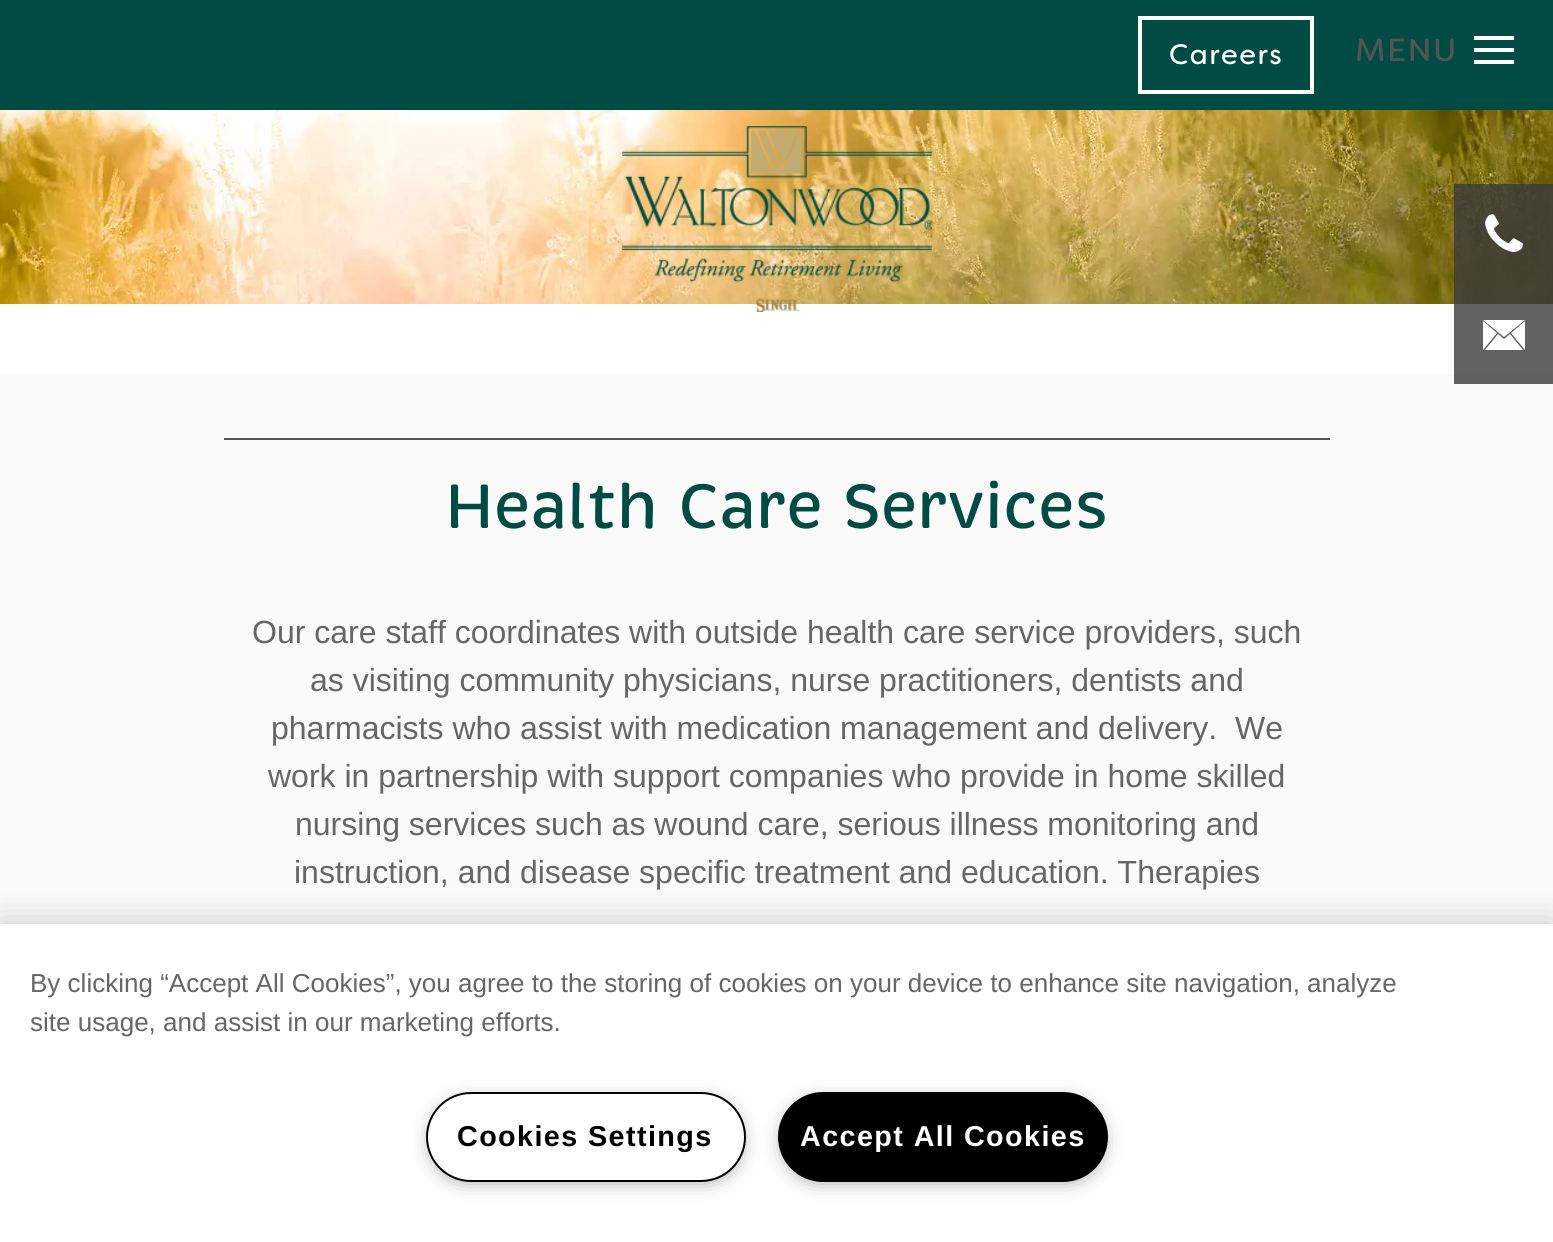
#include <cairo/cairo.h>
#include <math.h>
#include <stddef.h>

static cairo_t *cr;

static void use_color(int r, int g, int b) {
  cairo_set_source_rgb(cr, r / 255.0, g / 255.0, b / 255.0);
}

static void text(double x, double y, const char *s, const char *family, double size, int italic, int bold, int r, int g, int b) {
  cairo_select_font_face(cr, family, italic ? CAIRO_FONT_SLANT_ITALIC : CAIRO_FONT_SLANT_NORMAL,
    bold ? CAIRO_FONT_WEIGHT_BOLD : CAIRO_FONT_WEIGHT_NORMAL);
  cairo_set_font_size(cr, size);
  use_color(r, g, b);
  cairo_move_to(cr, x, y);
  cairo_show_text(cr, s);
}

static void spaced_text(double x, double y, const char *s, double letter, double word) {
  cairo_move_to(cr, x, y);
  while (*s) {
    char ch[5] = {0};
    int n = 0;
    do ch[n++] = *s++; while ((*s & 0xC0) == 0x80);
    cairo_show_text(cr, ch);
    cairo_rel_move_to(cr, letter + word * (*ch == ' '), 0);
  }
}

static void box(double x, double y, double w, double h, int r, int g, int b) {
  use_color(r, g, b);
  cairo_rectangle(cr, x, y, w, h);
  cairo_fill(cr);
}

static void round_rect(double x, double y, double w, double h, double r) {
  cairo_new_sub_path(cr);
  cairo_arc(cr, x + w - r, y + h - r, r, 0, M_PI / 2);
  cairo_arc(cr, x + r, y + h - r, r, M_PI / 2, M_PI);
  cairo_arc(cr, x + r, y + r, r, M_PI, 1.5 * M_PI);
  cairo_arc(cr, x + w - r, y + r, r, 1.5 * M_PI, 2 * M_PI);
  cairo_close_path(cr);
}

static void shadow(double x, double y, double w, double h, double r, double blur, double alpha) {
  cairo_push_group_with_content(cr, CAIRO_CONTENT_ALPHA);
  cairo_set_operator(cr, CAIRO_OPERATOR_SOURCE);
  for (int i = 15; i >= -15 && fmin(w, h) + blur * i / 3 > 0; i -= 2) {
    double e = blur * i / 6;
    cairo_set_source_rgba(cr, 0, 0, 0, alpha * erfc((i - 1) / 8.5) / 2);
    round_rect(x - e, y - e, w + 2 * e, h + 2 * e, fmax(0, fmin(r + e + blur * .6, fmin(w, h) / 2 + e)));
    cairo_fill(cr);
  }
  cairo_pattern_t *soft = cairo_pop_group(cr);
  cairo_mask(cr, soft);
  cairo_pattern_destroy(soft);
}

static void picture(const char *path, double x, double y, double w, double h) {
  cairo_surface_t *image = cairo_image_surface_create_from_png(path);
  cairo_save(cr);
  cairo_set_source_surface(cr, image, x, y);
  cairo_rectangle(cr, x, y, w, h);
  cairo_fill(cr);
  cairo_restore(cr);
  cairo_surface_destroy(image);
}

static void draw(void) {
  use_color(250, 250, 250);
  cairo_paint(cr);
  box(0, 0, 1553, 110, 0, 76, 69);
  cairo_rectangle(cr, 1140, 18, 172, 74);
  use_color(255, 255, 255);
  cairo_set_line_width(cr, 4);
  cairo_stroke(cr);
  box(1474, 36, 40, 4, 255, 255, 255);
  box(1474, 48, 40, 4, 255, 255, 255);
  box(1474, 60, 40, 4, 255, 255, 255);
  box(0, 304, 1553, 70, 255, 255, 255);
  picture("img_03.png", 0, 110, 1553, 194);
  picture("img_01.png", 622, 126, 310, 186);
  cairo_set_source_rgba(cr, 0.231, 0.231, 0.231, 0.8);
  cairo_rectangle(cr, 1454, 184, 99, 200);
  cairo_fill(cr);
  picture("img_02.png", 1485, 214, 38, 38);
  use_color(255, 255, 255);
  cairo_new_path(cr);
  cairo_move_to(cr, 1504, 339);
  cairo_line_to(cr, 1510, 334);
  cairo_line_to(cr, 1523, 350);
  cairo_line_to(cr, 1485, 350);
  cairo_line_to(cr, 1498, 334);
  cairo_close_path(cr);
  cairo_move_to(cr, 1525, 320);
  cairo_line_to(cr, 1504, 337);
  cairo_line_to(cr, 1483, 320);
  cairo_close_path(cr);
  cairo_move_to(cr, 1511, 333);
  cairo_line_to(cr, 1525, 321);
  cairo_line_to(cr, 1525, 350);
  cairo_close_path(cr);
  cairo_move_to(cr, 1483, 321);
  cairo_line_to(cr, 1497, 333);
  cairo_line_to(cr, 1483, 350);
  cairo_close_path(cr);
  cairo_fill(cr);
  box(224, 438, 1106, 2, 84, 84, 84);
  use_color(0, 0, 0);
  shadow(0, 924, 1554, 318, 0, 18, 0.2);
  box(0, 924, 1553, 318, 255, 255, 255);
  use_color(153, 153, 153);
  shadow(432, 1102, 308, 78, 39, 10, 1);
  use_color(255, 255, 255);
  round_rect(427, 1093, 318, 88, 44);
  cairo_fill_preserve(cr);
  use_color(0, 0, 0);
  cairo_set_line_width(cr, 2);
  cairo_stroke(cr);
  use_color(153, 153, 153);
  shadow(784, 1102, 318, 78, 39, 10, 1);
  use_color(0, 0, 0);
  round_rect(779, 1093, 328, 88, 44);
  cairo_fill_preserve(cr);
  cairo_stroke(cr);
  cairo_select_font_face(cr, "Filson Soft", CAIRO_FONT_SLANT_NORMAL, CAIRO_FONT_WEIGHT_NORMAL);
  cairo_set_font_size(cr, 28);
  use_color(255, 255, 255);
  spaced_text(1169, 64, "Careers", 1.5, 0);
  cairo_set_font_size(cr, 32);
  use_color(84, 84, 84);
  spaced_text(1355, 61, "MENU", 1.5, 0);
  text(445, 528, "Health Care Services", "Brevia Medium", 64, 0, 0, 0, 76, 69);
  text(252, 643, "Our care staff coordinates with outside health care service providers, such", "Liberation Sans", 32, 0, 0, 102, 102, 102);
  text(310, 691, "as visiting community physicians, nurse practitioners, dentists and", "Liberation Sans", 32, 0, 0, 102, 102, 102);
  text(271, 739, "pharmacists who assist with medication management and delivery.  We", "Liberation Sans", 32, 0, 0, 102, 102, 102);
  text(268, 787, "work in partnership with support companies who provide in home skilled", "Liberation Sans", 32, 0, 0, 102, 102, 102);
  text(295, 835, "nursing services such as wound care, serious illness monitoring and", "Liberation Sans", 32, 0, 0, 102, 102, 102);
  text(294, 883, "instruction, and disease specific treatment and education. Therapies", "Liberation Sans", 32, 0, 0, 102, 102, 102);
  text(30, 992, "By clicking “Accept All Cookies”, you agree to the storing of cookies on your device to enhance site navigation, analyze", "Liberation Sans", 26.02, 0, 0, 102, 102, 102);
  text(30, 1031, "site usage, and assist in our marketing efforts.", "Liberation Sans", 26.02, 0, 0, 102, 102, 102);
  cairo_select_font_face(cr, "Liberation Sans", CAIRO_FONT_SLANT_NORMAL, CAIRO_FONT_WEIGHT_BOLD);
  cairo_set_font_size(cr, 28.75);
  use_color(0, 0, 0);
  spaced_text(457, 1146, "Cookies Settings", 1.4, 0);
  use_color(255, 255, 255);
  spaced_text(800, 1146, "Accept All Cookies", 1.4, 0);
}

int main(void) {
  cairo_surface_t *surface = cairo_image_surface_create(CAIRO_FORMAT_RGB24, 1553, 1242);
  cr = cairo_create(surface);
  cairo_font_options_t *options = cairo_font_options_create();
  cairo_font_options_set_hint_metrics(options, CAIRO_HINT_METRICS_OFF);
  cairo_font_options_set_hint_style(options, CAIRO_HINT_STYLE_NONE);
  cairo_set_font_options(cr, options);
  cairo_set_miter_limit(cr, 4);
  draw();
  cairo_surface_write_to_png(surface, "out.png");
  cairo_font_options_destroy(options);
  cairo_destroy(cr);
  cairo_surface_destroy(surface);
  return 0;
}
